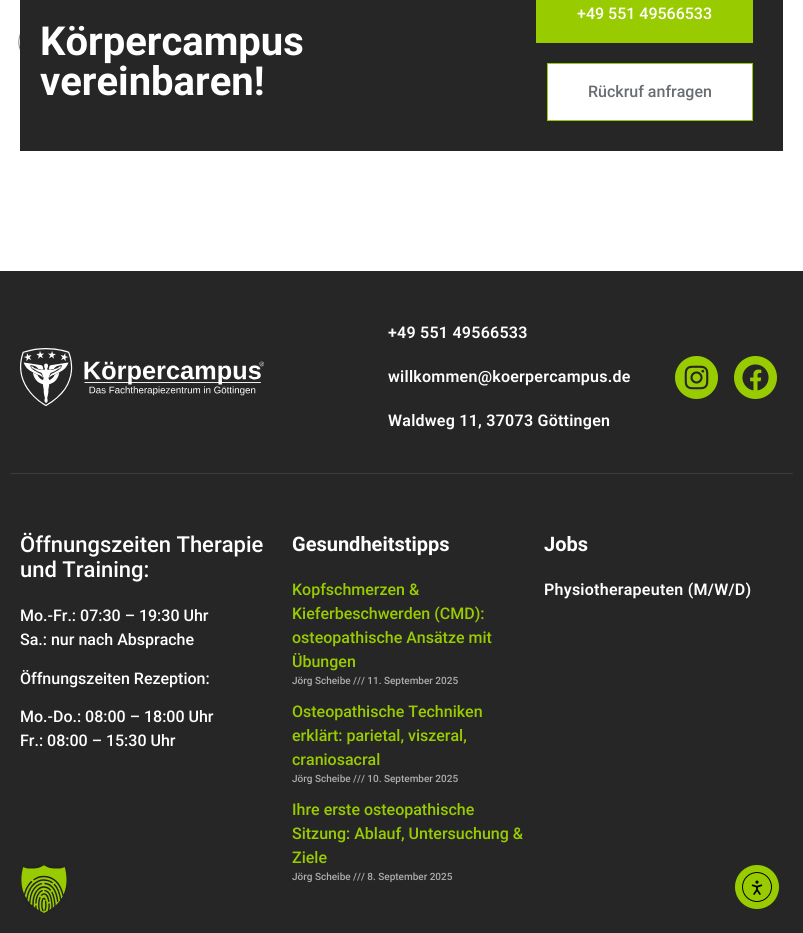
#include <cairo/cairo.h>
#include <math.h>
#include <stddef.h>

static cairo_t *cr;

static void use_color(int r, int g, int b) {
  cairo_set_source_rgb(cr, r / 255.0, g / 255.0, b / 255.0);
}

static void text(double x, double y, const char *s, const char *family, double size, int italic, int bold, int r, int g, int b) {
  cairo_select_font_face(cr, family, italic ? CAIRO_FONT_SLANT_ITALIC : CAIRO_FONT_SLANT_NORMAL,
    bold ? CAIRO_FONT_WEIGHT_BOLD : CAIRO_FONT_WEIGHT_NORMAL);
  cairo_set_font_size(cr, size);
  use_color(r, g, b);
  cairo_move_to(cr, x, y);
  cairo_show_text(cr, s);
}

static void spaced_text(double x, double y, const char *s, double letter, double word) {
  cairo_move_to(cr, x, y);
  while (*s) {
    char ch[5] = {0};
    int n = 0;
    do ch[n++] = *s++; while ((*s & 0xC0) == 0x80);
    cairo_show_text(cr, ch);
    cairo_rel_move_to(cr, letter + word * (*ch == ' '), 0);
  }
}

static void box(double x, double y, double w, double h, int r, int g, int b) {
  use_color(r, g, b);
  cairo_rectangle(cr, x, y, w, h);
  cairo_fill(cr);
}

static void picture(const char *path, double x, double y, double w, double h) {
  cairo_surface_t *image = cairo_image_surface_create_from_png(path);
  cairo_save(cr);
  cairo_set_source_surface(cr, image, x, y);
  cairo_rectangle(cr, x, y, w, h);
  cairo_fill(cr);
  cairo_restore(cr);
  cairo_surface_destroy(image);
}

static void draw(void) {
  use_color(255, 255, 255);
  cairo_paint(cr);
  picture("img_01.png", 18, 30, 2, 36);
  box(20, 0, 763, 151, 38, 38, 38);
  box(536, 0, 217, 43, 153, 204, 0);
  use_color(255, 255, 255);
  cairo_rectangle(cr, 547.5, 63.5, 205, 57);
  cairo_fill_preserve(cr);
  use_color(153, 204, 0);
  cairo_set_line_width(cr, 1);
  cairo_stroke(cr);
  box(0, 271, 803, 662, 38, 38, 38);
  box(10, 473, 783, 1, 60, 60, 60);
  picture("img_02.png", 20, 348, 244, 58);
  use_color(153, 204, 0);
  cairo_arc(cr, 696.5, 377.5, 21.5, 0, 2 * M_PI);
  cairo_fill(cr);
  picture("img_03.png", 684, 365, 25, 25);
  cairo_arc(cr, 755.5, 377.5, 21.5, 0, 2 * M_PI);
  cairo_fill(cr);
  picture("img_04.png", 742, 364, 27, 27);
  picture("img_05.png", 21, 865, 46, 48);
  cairo_arc(cr, 757, 887, 22, 0, 2 * M_PI);
  cairo_fill(cr);
  cairo_arc(cr, 757, 887, 14.5, 0, 2 * M_PI);
  use_color(0, 0, 0);
  cairo_stroke(cr);
  picture("img_06.png", 751, 880, 12, 15);
  text(40, 55, "Körpercampus", "Roboto", 40, 0, 1, 255, 255, 255);
  text(40, 95, "vereinbaren!", "Roboto", 40, 0, 1, 255, 255, 255);
  text(577, 19, "+49 551 49566533", "Roboto Medium", 16, 0, 0, 255, 255, 255);
  text(588, 97, "Rückruf anfragen", "Roboto Medium", 16, 0, 0, 105, 109, 113);
  cairo_select_font_face(cr, "Roboto SemiBold", CAIRO_FONT_SLANT_NORMAL, CAIRO_FONT_WEIGHT_NORMAL);
  use_color(255, 255, 255);
  spaced_text(388, 338, "+49 551 49566533", 0.25, 0);
  spaced_text(388, 382, "willkommen@koerpercampus.de", 0.25, 0);
  spaced_text(388, 426, "Waldweg 11, 37073 Göttingen", 0.25, 0);
  text(20, 552, "Öffnungszeiten Therapie", "Roboto Medium", 22, 0, 0, 255, 255, 255);
  text(20, 577, "und Training:", "Roboto Medium", 22, 0, 0, 255, 255, 255);
  text(20, 621, "Mo.-Fr.: 07:30 – 19:30 Uhr", "Roboto Medium", 16, 0, 0, 255, 255, 255);
  text(20, 645, "Sa.: nur nach Absprache", "Roboto Medium", 16, 0, 0, 255, 255, 255);
  text(20, 684, "Öffnungszeiten Rezeption:", "Roboto Medium", 16, 0, 0, 255, 255, 255);
  text(20, 722, "Mo.-Do.: 08:00 – 18:00 Uhr", "Roboto Medium", 16, 0, 0, 255, 255, 255);
  text(20, 746, "Fr.: 08:00 – 15:30 Uhr", "Roboto Medium", 16, 0, 0, 255, 255, 255);
  text(292, 551, "Gesundheitstipps", "Roboto", 20, 0, 1, 255, 255, 255);
  text(292, 595, "Kopfschmerzen &", "Roboto Medium", 16, 0, 0, 153, 204, 0);
  text(292, 619, "Kieferbeschwerden (CMD):", "Roboto Medium", 16, 0, 0, 153, 204, 0);
  text(292, 643, "osteopathische Ansätze mit", "Roboto Medium", 16, 0, 0, 153, 204, 0);
  text(292, 667, "Übungen", "Roboto Medium", 16, 0, 0, 153, 204, 0);
  text(292, 684, "Jörg Scheibe /// 11. September 2025", "Roboto Medium", 10, 0, 0, 173, 173, 173);
  text(292, 717, "Osteopathische Techniken", "Roboto Medium", 16, 0, 0, 153, 204, 0);
  text(292, 741, "erklärt: parietal, viszeral,", "Roboto Medium", 16, 0, 0, 153, 204, 0);
  text(292, 765, "craniosacral", "Roboto Medium", 16, 0, 0, 153, 204, 0);
  text(292, 782, "Jörg Scheibe /// 10. September 2025", "Roboto Medium", 10, 0, 0, 173, 173, 173);
  text(292, 815, "Ihre erste osteopathische", "Roboto Medium", 16, 0, 0, 153, 204, 0);
  text(292, 839, "Sitzung: Ablauf, Untersuchung &", "Roboto Medium", 16, 0, 0, 153, 204, 0);
  text(292, 863, "Ziele", "Roboto Medium", 16, 0, 0, 153, 204, 0);
  text(292, 880, "Jörg Scheibe /// 8. September 2025", "Roboto Medium", 10, 0, 0, 173, 173, 173);
  text(544, 551, "Jobs", "Roboto", 20, 0, 1, 255, 255, 255);
  cairo_select_font_face(cr, "Roboto SemiBold", CAIRO_FONT_SLANT_NORMAL, CAIRO_FONT_WEIGHT_NORMAL);
  cairo_set_font_size(cr, 16);
  spaced_text(544, 595, "Physiotherapeuten (M/W/D)", 0.25, 0);
}

int main(void) {
  cairo_surface_t *surface = cairo_image_surface_create(CAIRO_FORMAT_RGB24, 803, 933);
  cr = cairo_create(surface);
  cairo_font_options_t *options = cairo_font_options_create();
  cairo_font_options_set_hint_metrics(options, CAIRO_HINT_METRICS_OFF);
  cairo_font_options_set_hint_style(options, CAIRO_HINT_STYLE_NONE);
  cairo_set_font_options(cr, options);
  cairo_set_miter_limit(cr, 4);
  draw();
  cairo_surface_write_to_png(surface, "out.png");
  cairo_font_options_destroy(options);
  cairo_destroy(cr);
  cairo_surface_destroy(surface);
  return 0;
}
